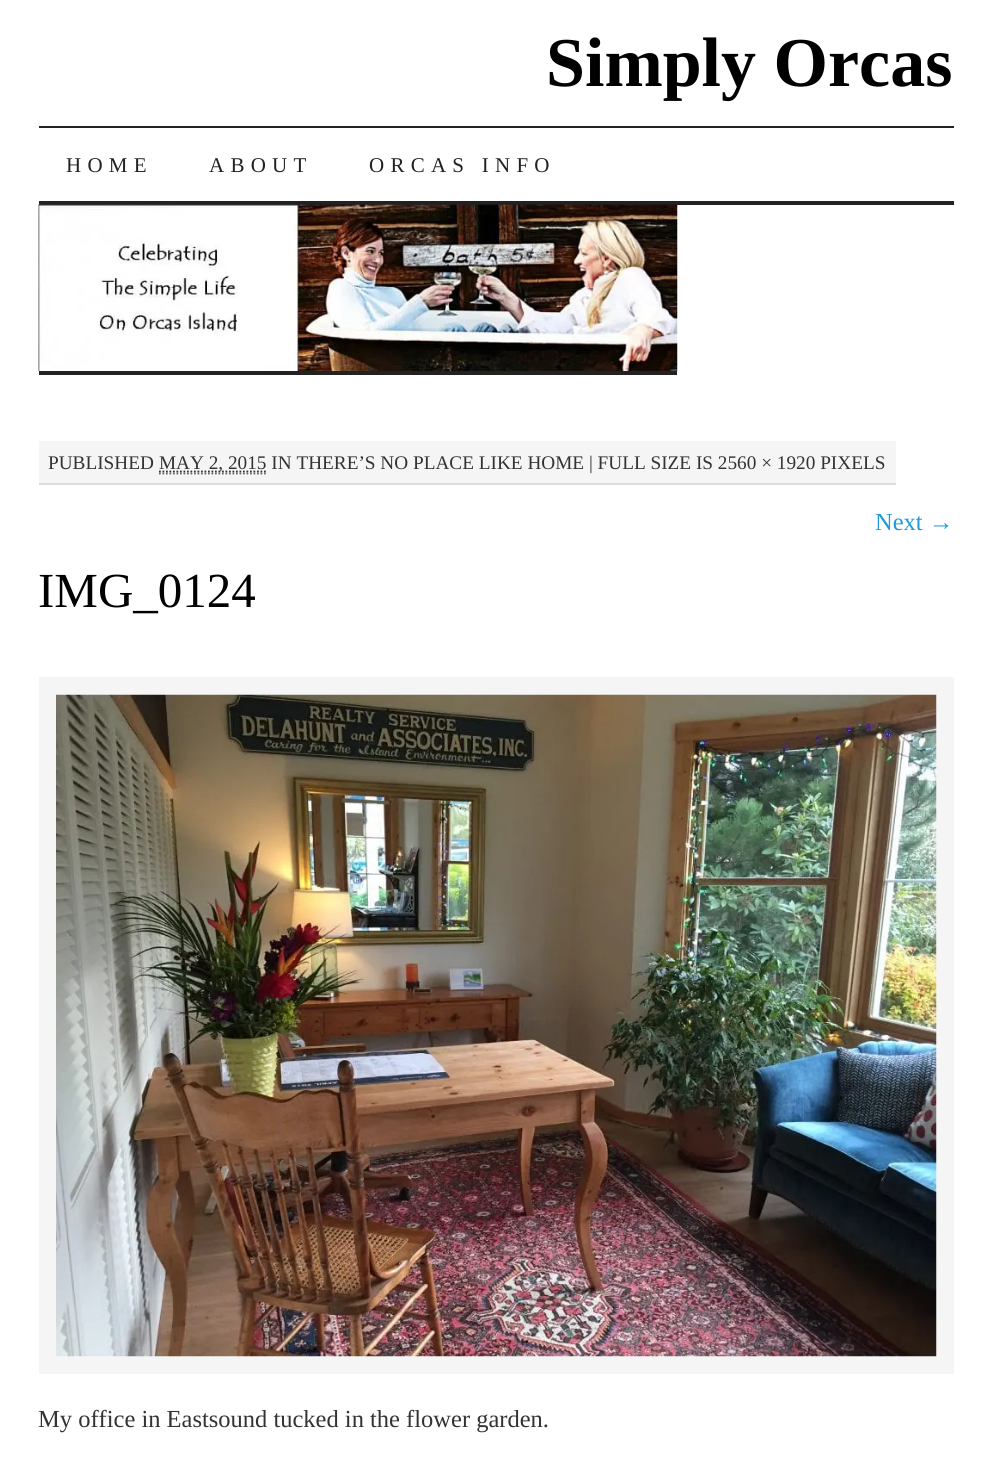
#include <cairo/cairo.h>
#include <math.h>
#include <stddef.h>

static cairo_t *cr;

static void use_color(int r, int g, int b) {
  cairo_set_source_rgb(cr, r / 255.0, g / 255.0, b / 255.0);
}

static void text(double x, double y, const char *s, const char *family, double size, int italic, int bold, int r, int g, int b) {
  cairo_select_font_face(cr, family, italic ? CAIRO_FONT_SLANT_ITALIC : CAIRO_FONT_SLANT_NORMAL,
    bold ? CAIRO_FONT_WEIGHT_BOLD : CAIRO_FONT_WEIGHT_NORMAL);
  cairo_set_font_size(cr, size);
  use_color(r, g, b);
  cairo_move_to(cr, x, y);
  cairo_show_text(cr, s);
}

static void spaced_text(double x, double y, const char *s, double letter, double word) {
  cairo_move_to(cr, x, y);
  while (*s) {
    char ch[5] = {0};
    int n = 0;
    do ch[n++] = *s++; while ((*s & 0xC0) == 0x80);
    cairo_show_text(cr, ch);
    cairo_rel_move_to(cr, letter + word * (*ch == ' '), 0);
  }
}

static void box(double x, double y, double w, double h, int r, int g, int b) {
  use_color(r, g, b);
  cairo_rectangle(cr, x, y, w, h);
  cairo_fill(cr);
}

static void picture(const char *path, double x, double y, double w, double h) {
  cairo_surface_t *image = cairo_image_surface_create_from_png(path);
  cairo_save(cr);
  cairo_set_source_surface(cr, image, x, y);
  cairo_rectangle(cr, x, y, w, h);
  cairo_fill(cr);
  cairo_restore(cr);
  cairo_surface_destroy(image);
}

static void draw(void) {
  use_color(255, 255, 255);
  cairo_paint(cr);
  box(39, 126, 915, 2, 34, 34, 34);
  box(39, 201, 915, 4, 34, 34, 34);
  picture("img_01.png", 38, 204, 640, 167);
  box(39, 371, 638, 4, 34, 34, 34);
  box(39, 441, 857, 42, 245, 245, 245);
  box(39, 483, 857, 2, 221, 221, 221);
  cairo_new_path(cr);
  cairo_move_to(cr, 159, 473.5);
  cairo_line_to(cr, 266, 473.5);
  use_color(102, 102, 102);
  cairo_set_line_width(cr, 1.8);
  cairo_set_dash(cr, (double[]){1.75, 1.75}, 2, 0);
  cairo_stroke(cr);
  cairo_new_path(cr);
  cairo_move_to(cr, 159, 471.5);
  cairo_line_to(cr, 266.5, 471.5);
  use_color(51, 51, 51);
  cairo_stroke(cr);
  box(39, 677, 915, 697, 245, 245, 245);
  picture("img_02.png", 56, 694, 881, 663);
  text(546, 86, "Simply Orcas", "Liberation Serif", 70, 0, 1, 0, 0, 0);
  cairo_select_font_face(cr, "Liberation Serif", CAIRO_FONT_SLANT_NORMAL, CAIRO_FONT_WEIGHT_NORMAL);
  cairo_set_font_size(cr, 21);
  use_color(34, 34, 34);
  spaced_text(66, 172, "HOME", 6.25, 0);
  spaced_text(209, 172, "ABOUT", 6.25, 0);
  spaced_text(369, 172, "ORCAS INFO", 6.25, 0);
  text(48, 469, "PUBLISHED", "Liberation Serif", 19.25, 0, 0, 51, 51, 51);
  text(159, 469, "MAY 2, 2015 IN THERE’S NO PLACE LIKE HOME | FULL SIZE IS 2560 × 1920 PIXELS", "Liberation Serif", 19.25, 0, 0, 51, 51, 51);
  text(875, 530, "Next →", "Liberation Serif", 24.5, 0, 0, 28, 155, 220);
  text(38, 607, "IMG_0124", "Liberation Serif", 49, 0, 0, 0, 0, 0);
  text(38, 1427, "My office in Eastsound tucked in the flower garden.", "Liberation Serif", 24.5, 0, 0, 51, 51, 51);
}

int main(void) {
  cairo_surface_t *surface = cairo_image_surface_create(CAIRO_FORMAT_RGB24, 990, 1468);
  cr = cairo_create(surface);
  cairo_font_options_t *options = cairo_font_options_create();
  cairo_font_options_set_hint_metrics(options, CAIRO_HINT_METRICS_OFF);
  cairo_font_options_set_hint_style(options, CAIRO_HINT_STYLE_NONE);
  cairo_set_font_options(cr, options);
  cairo_set_miter_limit(cr, 4);
  draw();
  cairo_surface_write_to_png(surface, "out.png");
  cairo_font_options_destroy(options);
  cairo_destroy(cr);
  cairo_surface_destroy(surface);
  return 0;
}
